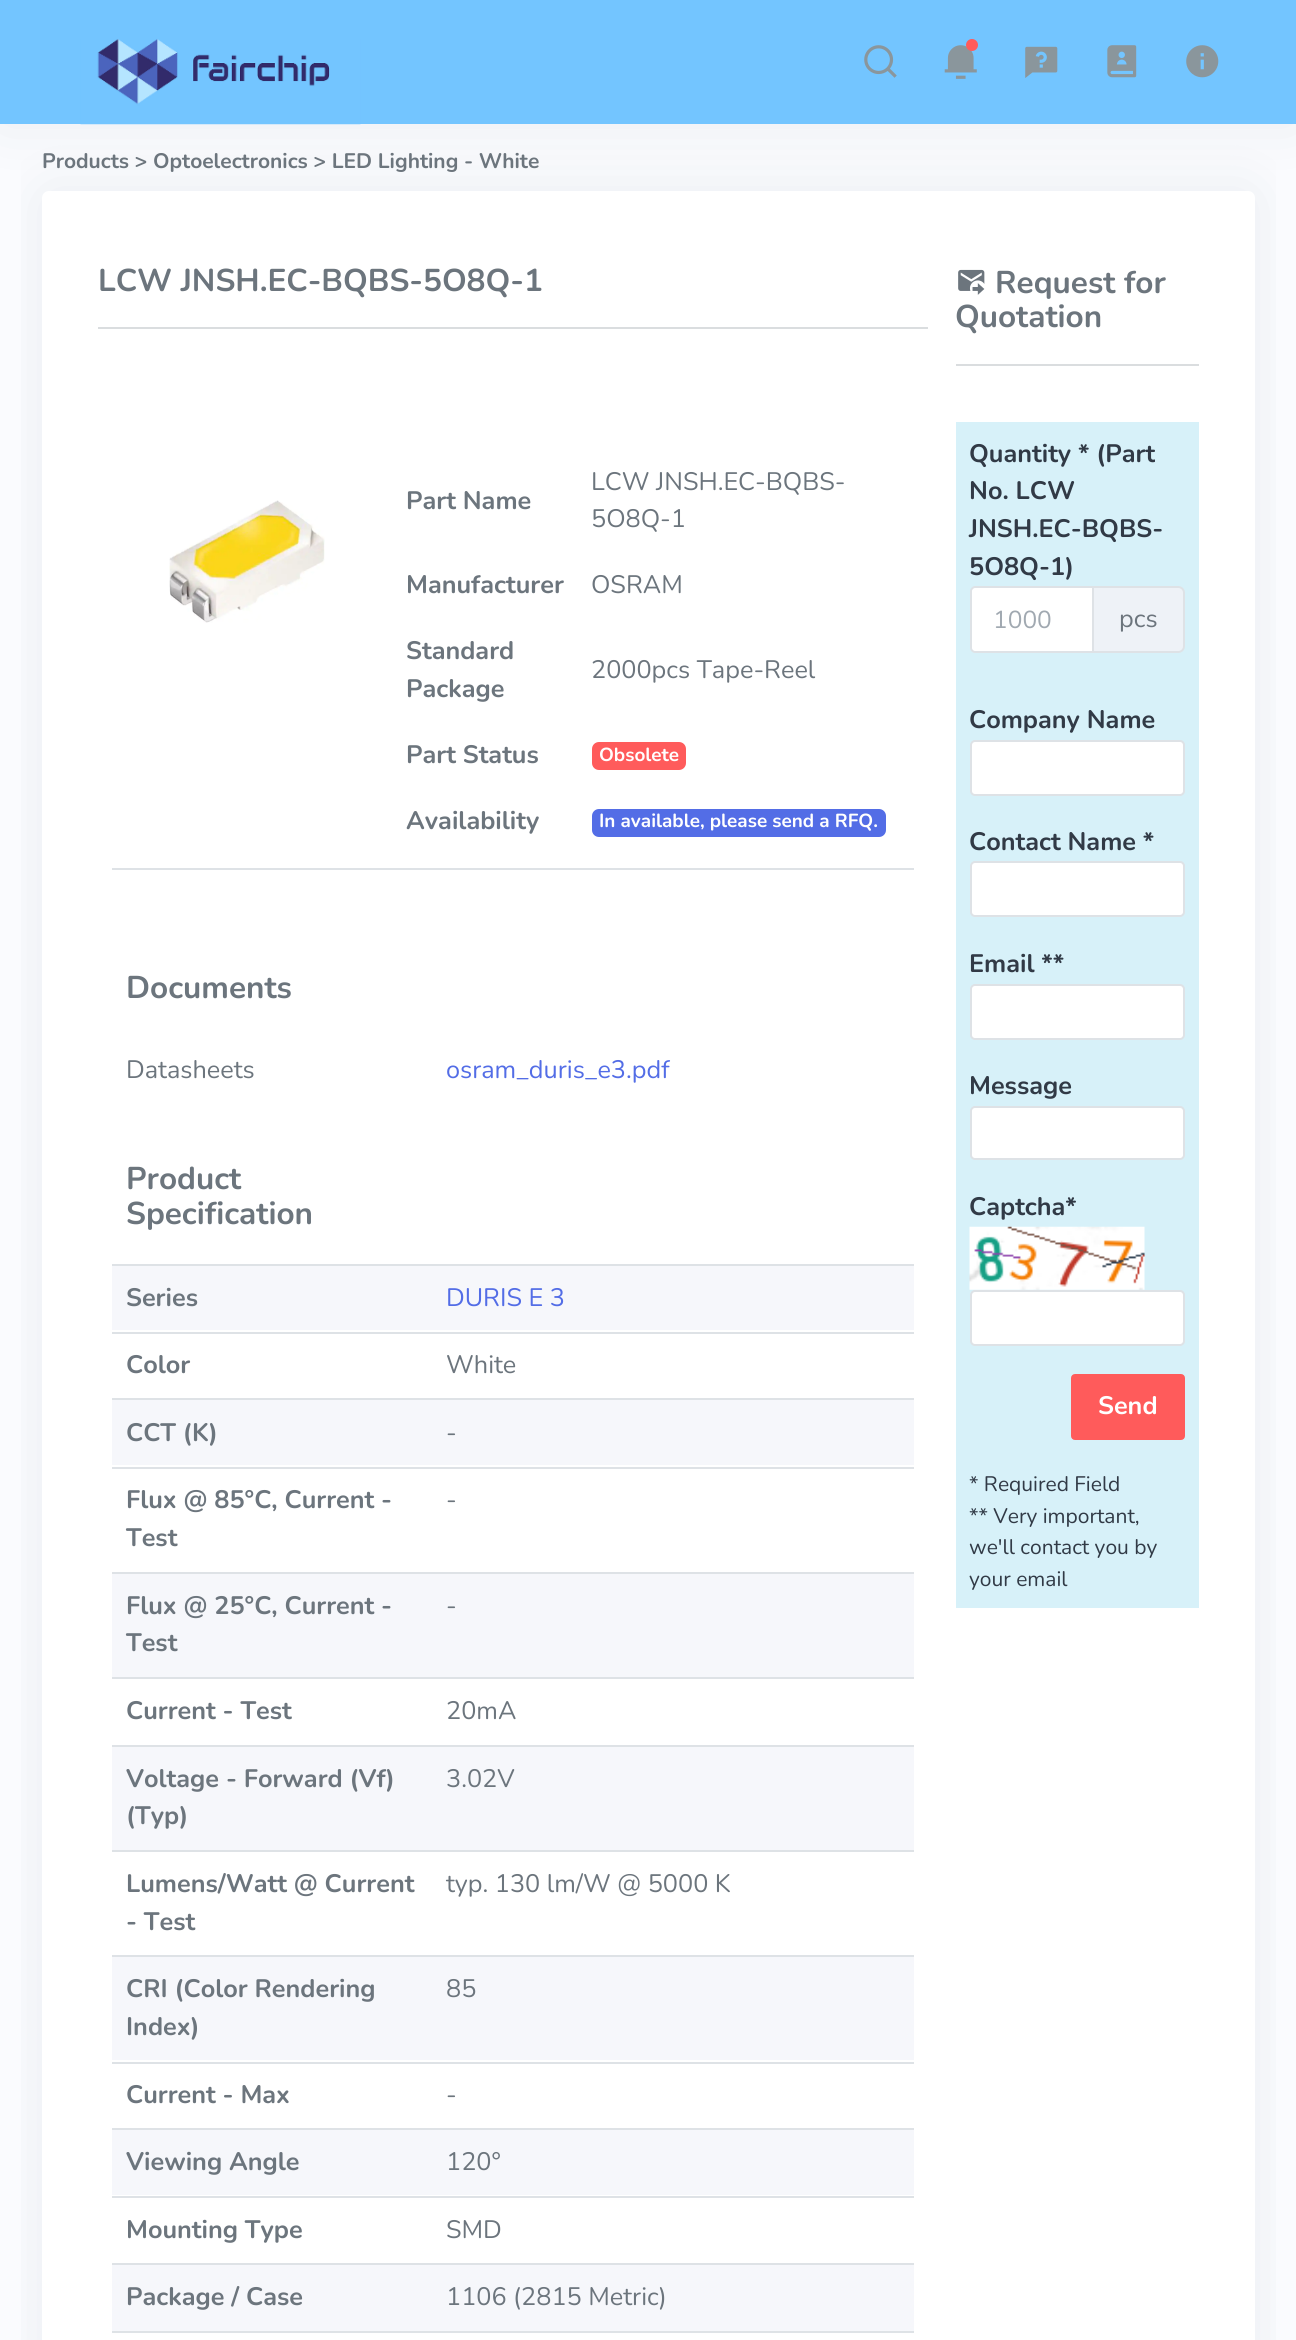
#include <cairo/cairo.h>
#include <math.h>
#include <stddef.h>

static cairo_t *cr;

static void use_color(int r, int g, int b) {
  cairo_set_source_rgb(cr, r / 255.0, g / 255.0, b / 255.0);
}

static void text(double x, double y, const char *s, const char *family, double size, int italic, int bold, int r, int g, int b) {
  cairo_select_font_face(cr, family, italic ? CAIRO_FONT_SLANT_ITALIC : CAIRO_FONT_SLANT_NORMAL,
    bold ? CAIRO_FONT_WEIGHT_BOLD : CAIRO_FONT_WEIGHT_NORMAL);
  cairo_set_font_size(cr, size);
  use_color(r, g, b);
  cairo_move_to(cr, x, y);
  cairo_show_text(cr, s);
}

static void box(double x, double y, double w, double h, int r, int g, int b) {
  use_color(r, g, b);
  cairo_rectangle(cr, x, y, w, h);
  cairo_fill(cr);
}

static void round_rect(double x, double y, double w, double h, double r) {
  cairo_new_sub_path(cr);
  cairo_arc(cr, x + w - r, y + h - r, r, 0, M_PI / 2);
  cairo_arc(cr, x + r, y + h - r, r, M_PI / 2, M_PI);
  cairo_arc(cr, x + r, y + r, r, M_PI, 1.5 * M_PI);
  cairo_arc(cr, x + w - r, y + r, r, 1.5 * M_PI, 2 * M_PI);
  cairo_close_path(cr);
}

static void shadow(double x, double y, double w, double h, double r, double blur, double alpha) {
  cairo_push_group_with_content(cr, CAIRO_CONTENT_ALPHA);
  cairo_set_operator(cr, CAIRO_OPERATOR_SOURCE);
  for (int i = 15; i >= -15 && fmin(w, h) + blur * i / 3 > 0; i -= 2) {
    double e = blur * i / 6;
    cairo_set_source_rgba(cr, 0, 0, 0, alpha * erfc((i - 1) / 8.5) / 2);
    round_rect(x - e, y - e, w + 2 * e, h + 2 * e, fmax(0, fmin(r + e + blur * .6, fmin(w, h) / 2 + e)));
    cairo_fill(cr);
  }
  cairo_pattern_t *soft = cairo_pop_group(cr);
  cairo_mask(cr, soft);
  cairo_pattern_destroy(soft);
}

static void picture(const char *path, double x, double y, double w, double h) {
  cairo_surface_t *image = cairo_image_surface_create_from_png(path);
  cairo_save(cr);
  cairo_set_source_surface(cr, image, x, y);
  cairo_rectangle(cr, x, y, w, h);
  cairo_fill(cr);
  cairo_restore(cr);
  cairo_surface_destroy(image);
}

static void draw(void) {
  use_color(250, 251, 254);
  cairo_paint(cr);
  cairo_save(cr);
  cairo_rectangle(cr, 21, 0, 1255, 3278);
  cairo_clip(cr);
  use_color(154, 161, 171);
  shadow(42, 191, 1213, 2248, 7, 30.5, 0.15);
  cairo_restore(cr);
  use_color(255, 255, 255);
  round_rect(42, 191, 1213, 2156, 7);
  cairo_fill(cr);
  use_color(154, 161, 171);
  shadow(0, 0, 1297, 124, 0, 30.5, 0.15);
  box(0, 0, 1296, 124, 115, 197, 255);
  picture("img_01.png", 80, 39, 281, 86);
  picture("img_02.png", 864, 45, 33, 33);
  picture("img_03.png", 944, 45, 33, 34);
  use_color(255, 91, 91);
  cairo_arc(cr, 972, 45, 6, 0, 2 * M_PI);
  cairo_fill(cr);
  picture("img_04.png", 1025, 46, 33, 32);
  picture("img_05.png", 1107, 45, 30, 33);
  picture("img_06.png", 1186, 45, 33, 33);
  box(98, 327, 830, 2, 218, 221, 223);
  picture("img_07.png", 958, 269, 27, 26);
  box(956, 364, 243, 2, 218, 221, 223);
  picture("img_08.png", 169, 500, 156, 123);
  box(112, 868, 802, 2, 222, 226, 230);
  use_color(255, 91, 91);
  round_rect(592, 742, 94, 28, 7);
  cairo_fill(cr);
  use_color(83, 109, 230);
  round_rect(592, 809, 294, 28, 7);
  cairo_fill(cr);
  box(112, 1264, 802, 2, 222, 226, 230);
  box(112, 1266, 802, 64, 246, 247, 251);
  box(112, 1332, 802, 2, 222, 226, 230);
  box(112, 1398, 802, 2, 222, 226, 230);
  box(112, 1400, 802, 65, 246, 247, 251);
  box(112, 1467, 802, 2, 222, 226, 230);
  box(112, 1572, 802, 2, 222, 226, 230);
  box(112, 1574, 802, 103, 246, 247, 251);
  box(112, 1677, 802, 2, 222, 226, 230);
  box(112, 1745, 802, 2, 222, 226, 230);
  box(112, 1747, 802, 103, 246, 247, 251);
  box(112, 1850, 802, 2, 222, 226, 230);
  box(112, 1955, 802, 2, 222, 226, 230);
  box(112, 1957, 802, 103, 246, 247, 251);
  box(112, 2062, 802, 2, 222, 226, 230);
  box(112, 2128, 802, 2, 222, 226, 230);
  box(112, 2130, 802, 65, 246, 247, 251);
  box(112, 2196, 802, 2, 222, 226, 230);
  box(112, 2263, 802, 2, 222, 226, 230);
  box(112, 2265, 802, 66, 246, 247, 251);
  box(112, 2331, 802, 2, 222, 226, 230);
  box(956, 422, 243, 1186, 215, 241, 249);
  use_color(238, 242, 247);
  cairo_new_path(cr);
  cairo_move_to(cr, 1093, 587);
  cairo_line_to(cr, 1178, 587);
  cairo_curve_to(cr, 1181.5, 587, 1184, 589.5, 1184, 593);
  cairo_line_to(cr, 1184, 646);
  cairo_curve_to(cr, 1184, 649.5, 1181.5, 652, 1178, 652);
  cairo_line_to(cr, 1093, 652);
  cairo_close_path(cr);
  cairo_fill_preserve(cr);
  use_color(222, 226, 230);
  cairo_stroke(cr);
  use_color(255, 255, 255);
  cairo_new_path(cr);
  cairo_move_to(cr, 975, 587);
  cairo_line_to(cr, 1093, 587);
  cairo_line_to(cr, 1093, 652);
  cairo_line_to(cr, 975, 652);
  cairo_curve_to(cr, 973, 652, 971, 650, 971, 648);
  cairo_line_to(cr, 971, 591);
  cairo_curve_to(cr, 971, 589, 973, 587, 975, 587);
  cairo_close_path(cr);
  cairo_fill_preserve(cr);
  use_color(222, 226, 230);
  cairo_stroke(cr);
  use_color(255, 255, 255);
  round_rect(971, 741, 213, 54, 4);
  cairo_fill_preserve(cr);
  use_color(222, 226, 230);
  cairo_stroke(cr);
  use_color(255, 255, 255);
  round_rect(971, 862, 213, 54, 4);
  cairo_fill_preserve(cr);
  use_color(222, 226, 230);
  cairo_stroke(cr);
  use_color(255, 255, 255);
  round_rect(971, 985, 213, 54, 4);
  cairo_fill_preserve(cr);
  use_color(222, 226, 230);
  cairo_stroke(cr);
  use_color(255, 255, 255);
  round_rect(971, 1107, 213, 52, 4);
  cairo_fill_preserve(cr);
  use_color(222, 226, 230);
  cairo_stroke(cr);
  picture("img_09.png", 969, 1226, 176, 64);
  use_color(255, 255, 255);
  round_rect(971, 1291, 213, 54, 4);
  cairo_fill_preserve(cr);
  use_color(222, 226, 230);
  cairo_stroke(cr);
  use_color(255, 91, 91);
  round_rect(1072, 1375, 112, 64, 3);
  cairo_fill_preserve(cr);
  cairo_stroke(cr);
  text(42, 168, "Products > Optoelectronics > LED Lighting - White", "Nunito", 21, 0, 1, 108, 117, 125);
  text(98, 291, "LCW JNSH.EC-BQBS-5O8Q-1", "Nunito", 31.5, 0, 1, 108, 117, 125);
  text(995, 293, "Request for", "Nunito", 31.5, 0, 1, 108, 117, 125);
  text(955, 327, "Quotation", "Nunito", 31.5, 0, 1, 108, 117, 125);
  text(406, 509, "Part Name", "Nunito", 25.25, 0, 1, 108, 117, 125);
  text(591, 490, "LCW JNSH.EC-BQBS-", "Nunito", 25.25, 0, 0, 108, 117, 125);
  text(591, 527, "5O8Q-1", "Nunito", 25.25, 0, 0, 108, 117, 125);
  text(406, 593, "Manufacturer", "Nunito", 25.25, 0, 1, 108, 117, 125);
  text(591, 593, "OSRAM", "Nunito", 25.25, 0, 0, 108, 117, 125);
  text(406, 659, "Standard", "Nunito", 25.25, 0, 1, 108, 117, 125);
  text(406, 697, "Package", "Nunito", 25.25, 0, 1, 108, 117, 125);
  text(591, 678, "2000pcs Tape-Reel", "Nunito", 25.25, 0, 0, 108, 117, 125);
  text(406, 763, "Part Status", "Nunito", 25.25, 0, 1, 108, 117, 125);
  text(599, 761, "Obsolete", "Nunito", 18.9, 0, 1, 255, 255, 255);
  text(406, 829, "Availability", "Nunito", 25.25, 0, 1, 108, 117, 125);
  text(599, 827, "In available, please send a RFQ.", "Nunito", 18.9, 0, 1, 255, 255, 255);
  text(126, 998, "Documents", "Nunito", 31.5, 0, 1, 108, 117, 125);
  text(126, 1078, "Datasheets", "Nunito", 25.25, 0, 0, 108, 117, 125);
  text(446, 1078, "osram_duris_e3.pdf", "Nunito", 25.25, 0, 0, 83, 109, 230);
  text(126, 1189, "Product", "Nunito", 31.5, 0, 1, 108, 117, 125);
  text(126, 1224, "Specification", "Nunito", 31.5, 0, 1, 108, 117, 125);
  text(126, 1306, "Series", "Nunito", 25.25, 0, 1, 108, 117, 125);
  text(446, 1306, "DURIS E 3", "Nunito", 25.25, 0, 0, 83, 109, 230);
  text(126, 1373, "Color", "Nunito", 25.25, 0, 1, 108, 117, 125);
  text(446, 1373, "White", "Nunito", 25.25, 0, 0, 108, 117, 125);
  text(126, 1441, "CCT (K)", "Nunito", 25.25, 0, 1, 108, 117, 125);
  text(446, 1441, "-", "Nunito", 25.25, 0, 0, 108, 117, 125);
  text(126, 1508, "Flux @ 85°C, Current -", "Nunito", 25.25, 0, 1, 108, 117, 125);
  text(126, 1546, "Test", "Nunito", 25.25, 0, 1, 108, 117, 125);
  text(446, 1508, "-", "Nunito", 25.25, 0, 0, 108, 117, 125);
  text(126, 1614, "Flux @ 25°C, Current -", "Nunito", 25.25, 0, 1, 108, 117, 125);
  text(126, 1651, "Test", "Nunito", 25.25, 0, 1, 108, 117, 125);
  text(446, 1614, "-", "Nunito", 25.25, 0, 0, 108, 117, 125);
  text(126, 1719, "Current - Test", "Nunito", 25.25, 0, 1, 108, 117, 125);
  text(446, 1719, "20mA", "Nunito", 25.25, 0, 0, 108, 117, 125);
  text(126, 1787, "Voltage - Forward (Vf)", "Nunito", 25.25, 0, 1, 108, 117, 125);
  text(126, 1824, "(Typ)", "Nunito", 25.25, 0, 1, 108, 117, 125);
  text(446, 1787, "3.02V", "Nunito", 25.25, 0, 0, 108, 117, 125);
  text(126, 1892, "Lumens/Watt @ Current", "Nunito", 25.25, 0, 1, 108, 117, 125);
  text(126, 1930, "- Test", "Nunito", 25.25, 0, 1, 108, 117, 125);
  text(446, 1892, "typ. 130 lm/W @ 5000 K", "Nunito", 25.25, 0, 0, 108, 117, 125);
  text(126, 1997, "CRI (Color Rendering", "Nunito", 25.25, 0, 1, 108, 117, 125);
  text(126, 2035, "Index)", "Nunito", 25.25, 0, 1, 108, 117, 125);
  text(446, 1997, "85", "Nunito", 25.25, 0, 0, 108, 117, 125);
  text(126, 2103, "Current - Max", "Nunito", 25.25, 0, 1, 108, 117, 125);
  text(446, 2103, "-", "Nunito", 25.25, 0, 0, 108, 117, 125);
  text(126, 2170, "Viewing Angle", "Nunito", 25.25, 0, 1, 108, 117, 125);
  text(446, 2170, "120°", "Nunito", 25.25, 0, 0, 108, 117, 125);
  text(126, 2238, "Mounting Type", "Nunito", 25.25, 0, 1, 108, 117, 125);
  text(446, 2238, "SMD", "Nunito", 25.25, 0, 0, 108, 117, 125);
  text(126, 2305, "Package / Case", "Nunito", 25.25, 0, 1, 108, 117, 125);
  text(446, 2305, "1106 (2815 Metric)", "Nunito", 25.25, 0, 0, 108, 117, 125);
  text(969, 462, "Quantity * (Part", "Nunito", 25.25, 0, 1, 49, 58, 70);
  text(969, 499, "No. LCW", "Nunito", 25.25, 0, 1, 49, 58, 70);
  text(969, 537, "JNSH.EC-BQBS-", "Nunito", 25.25, 0, 1, 49, 58, 70);
  text(969, 575, "5O8Q-1)", "Nunito", 25.25, 0, 1, 49, 58, 70);
  text(993, 628, "1000", "Nunito", 24.5, 0, 0, 161, 169, 177);
  text(1119, 627, "pcs", "Nunito", 25.25, 0, 0, 108, 117, 125);
  text(969, 728, "Company Name", "Nunito", 25.25, 0, 1, 49, 58, 70);
  text(969, 850, "Contact Name *", "Nunito", 25.25, 0, 1, 49, 58, 70);
  text(969, 972, "Email **", "Nunito", 25.25, 0, 1, 49, 58, 70);
  text(969, 1094, "Message", "Nunito", 25.25, 0, 1, 49, 58, 70);
  text(969, 1215, "Captcha*", "Nunito", 25.25, 0, 1, 49, 58, 70);
  text(1098, 1414, "Send", "Nunito", 25.25, 0, 1, 255, 255, 255);
  text(969, 1491, "* Required Field", "Nunito", 21, 0, 0, 49, 58, 70);
  text(969, 1523, "** Very important,", "Nunito", 21, 0, 0, 49, 58, 70);
  text(969, 1554, "we'll contact you by", "Nunito", 21, 0, 0, 49, 58, 70);
  text(969, 1586, "your email", "Nunito", 21, 0, 0, 49, 58, 70);
}

int main(void) {
  cairo_surface_t *surface = cairo_image_surface_create(CAIRO_FORMAT_RGB24, 1296, 2340);
  cr = cairo_create(surface);
  cairo_font_options_t *options = cairo_font_options_create();
  cairo_font_options_set_hint_metrics(options, CAIRO_HINT_METRICS_OFF);
  cairo_font_options_set_hint_style(options, CAIRO_HINT_STYLE_NONE);
  cairo_set_font_options(cr, options);
  cairo_set_miter_limit(cr, 4);
  draw();
  cairo_surface_write_to_png(surface, "out.png");
  cairo_font_options_destroy(options);
  cairo_destroy(cr);
  cairo_surface_destroy(surface);
  return 0;
}
